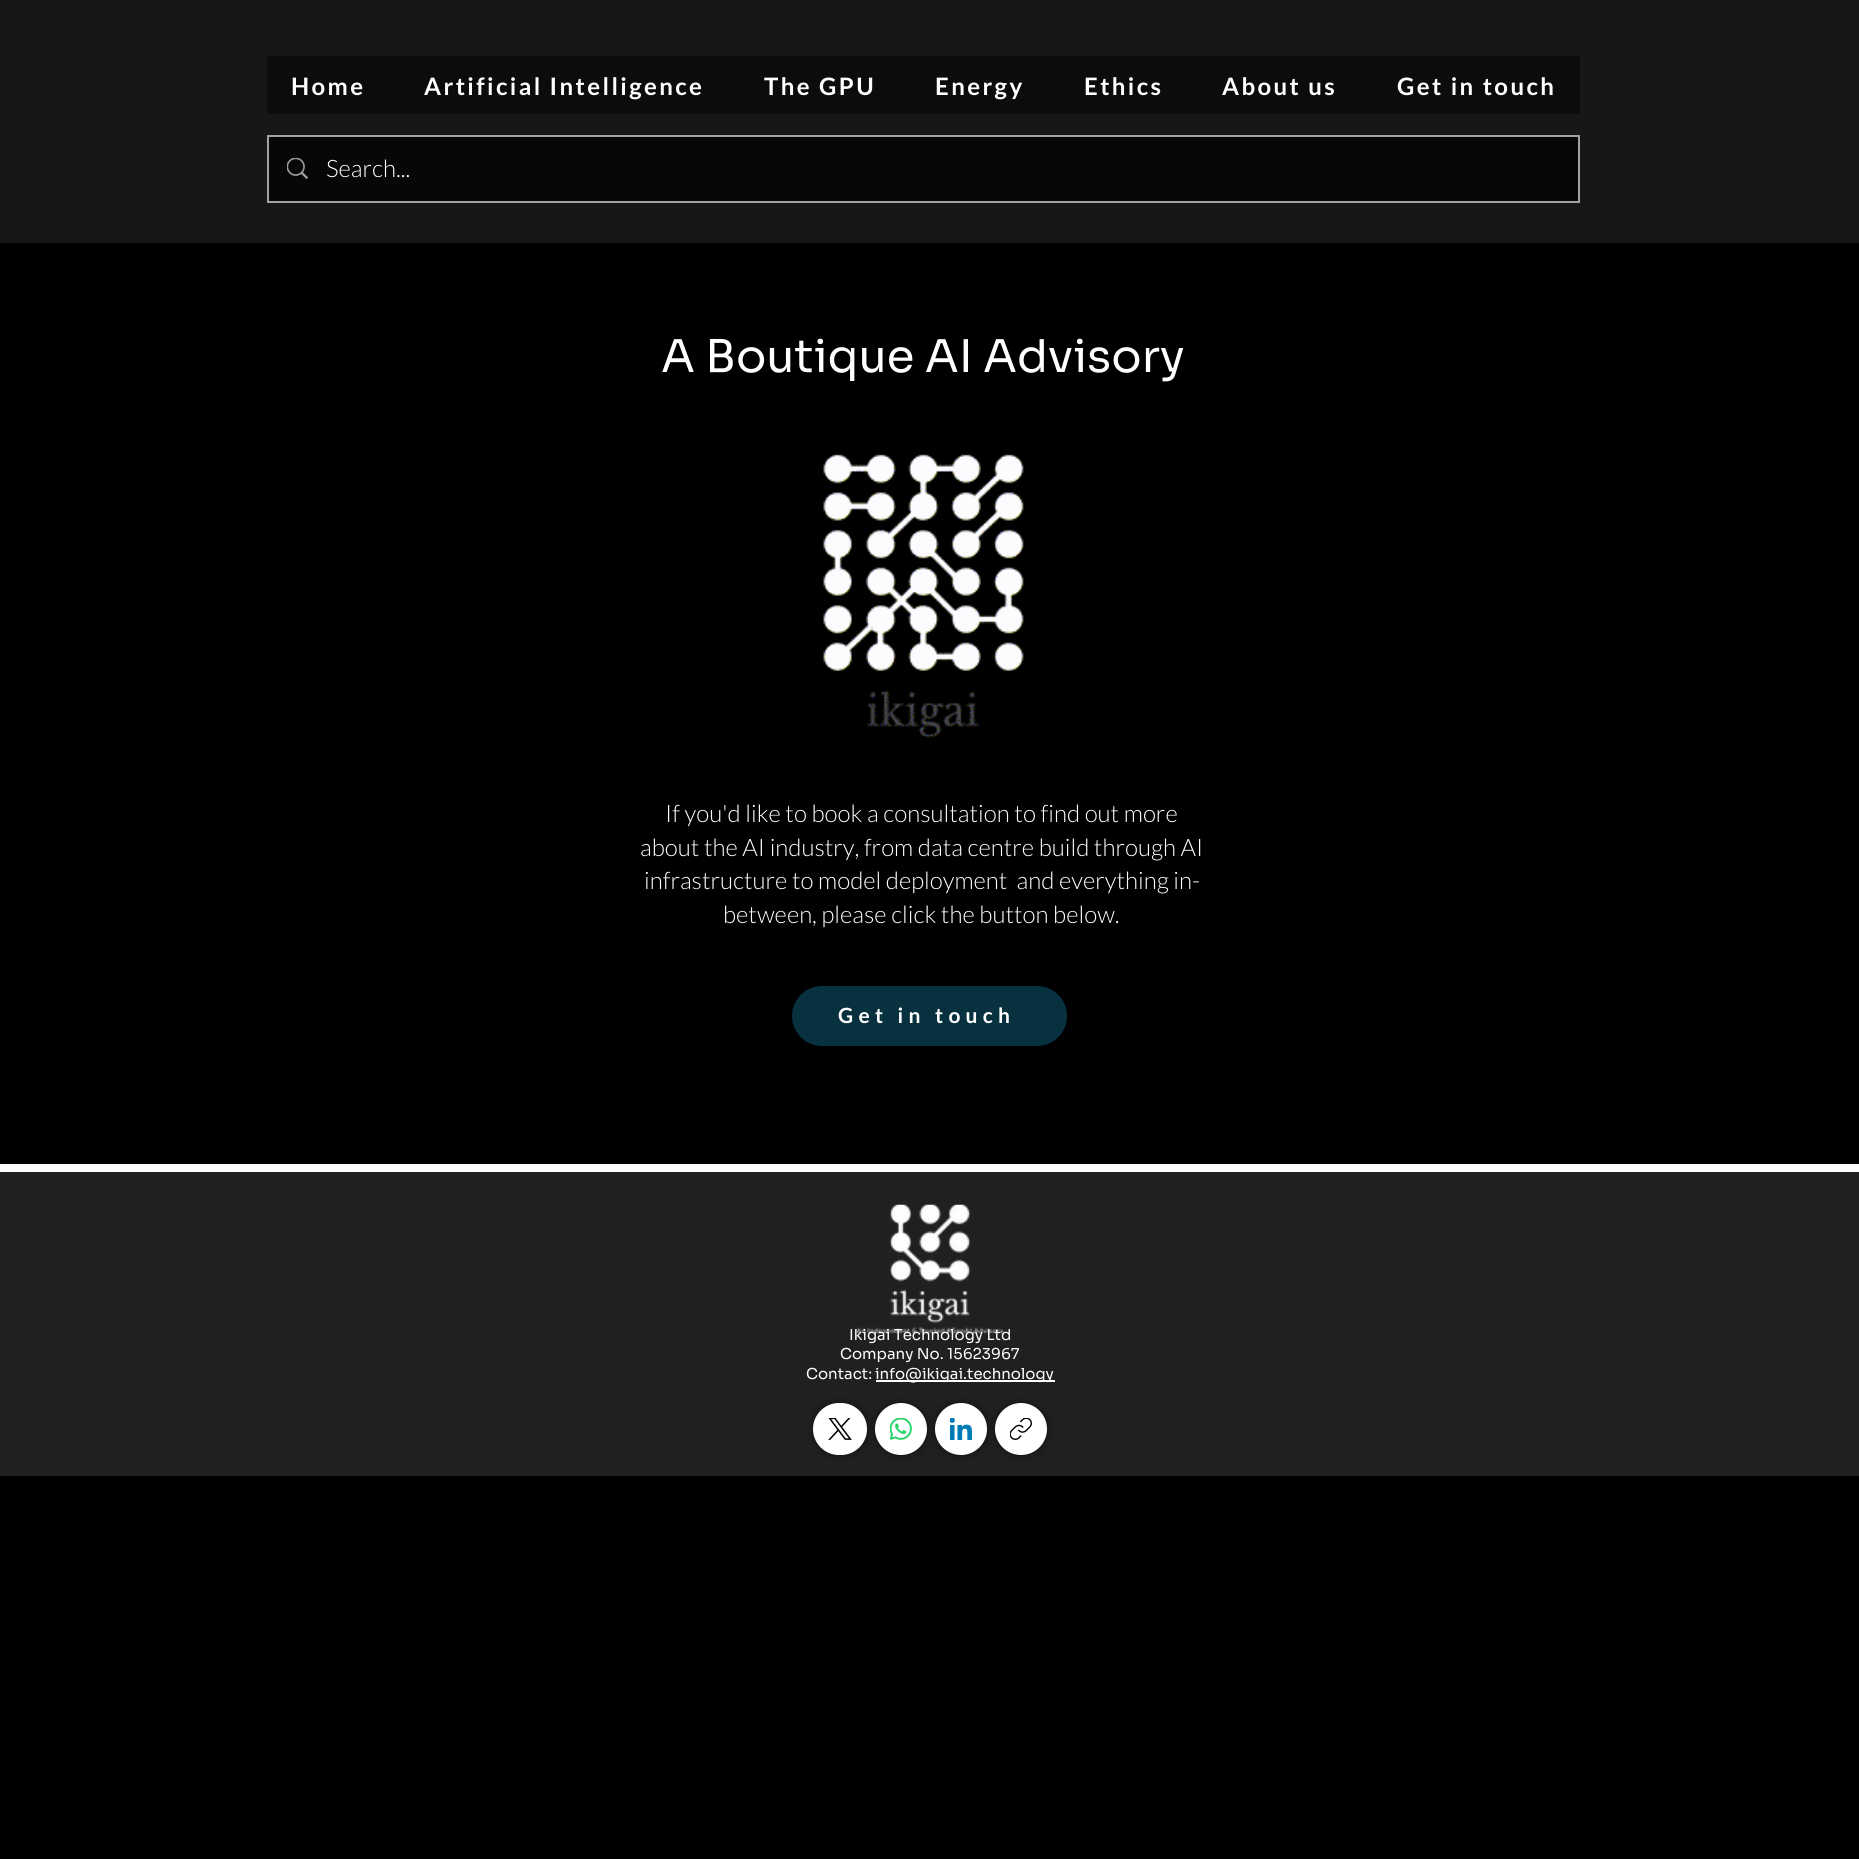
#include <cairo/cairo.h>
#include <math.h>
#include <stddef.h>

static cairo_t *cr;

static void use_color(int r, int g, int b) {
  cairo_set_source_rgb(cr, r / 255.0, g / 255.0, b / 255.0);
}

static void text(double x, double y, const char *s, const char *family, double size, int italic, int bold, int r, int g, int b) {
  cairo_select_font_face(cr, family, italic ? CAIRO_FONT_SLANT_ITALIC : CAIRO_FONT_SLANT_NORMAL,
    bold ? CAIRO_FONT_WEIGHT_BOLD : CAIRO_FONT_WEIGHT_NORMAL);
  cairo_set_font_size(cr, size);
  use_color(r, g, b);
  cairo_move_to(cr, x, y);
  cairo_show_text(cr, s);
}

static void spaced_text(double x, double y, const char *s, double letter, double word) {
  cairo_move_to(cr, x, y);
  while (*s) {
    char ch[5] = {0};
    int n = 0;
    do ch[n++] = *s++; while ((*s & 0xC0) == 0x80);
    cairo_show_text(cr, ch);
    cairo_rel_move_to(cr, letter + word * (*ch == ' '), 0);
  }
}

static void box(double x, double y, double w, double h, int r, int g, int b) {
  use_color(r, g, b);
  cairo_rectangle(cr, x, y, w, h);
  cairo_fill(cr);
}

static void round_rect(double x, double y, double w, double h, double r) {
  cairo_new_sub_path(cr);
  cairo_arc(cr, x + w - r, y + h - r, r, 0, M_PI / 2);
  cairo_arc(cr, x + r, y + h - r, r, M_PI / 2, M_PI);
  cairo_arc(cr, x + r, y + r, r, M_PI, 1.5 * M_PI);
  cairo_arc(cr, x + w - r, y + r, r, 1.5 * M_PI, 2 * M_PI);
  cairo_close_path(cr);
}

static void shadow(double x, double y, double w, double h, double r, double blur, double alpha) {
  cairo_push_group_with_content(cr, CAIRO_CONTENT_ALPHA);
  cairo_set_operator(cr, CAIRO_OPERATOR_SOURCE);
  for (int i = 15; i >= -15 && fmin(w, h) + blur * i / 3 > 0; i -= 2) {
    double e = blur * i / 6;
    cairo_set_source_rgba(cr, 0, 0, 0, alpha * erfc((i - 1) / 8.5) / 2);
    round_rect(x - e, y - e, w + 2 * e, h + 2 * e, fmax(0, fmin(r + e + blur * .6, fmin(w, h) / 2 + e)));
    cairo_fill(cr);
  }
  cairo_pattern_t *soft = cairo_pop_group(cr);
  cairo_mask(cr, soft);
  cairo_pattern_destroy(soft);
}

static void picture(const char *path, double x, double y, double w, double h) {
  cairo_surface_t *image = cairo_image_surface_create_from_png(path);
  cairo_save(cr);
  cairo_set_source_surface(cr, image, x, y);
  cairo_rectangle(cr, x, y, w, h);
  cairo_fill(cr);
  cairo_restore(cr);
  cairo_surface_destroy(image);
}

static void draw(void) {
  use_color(0, 0, 0);
  cairo_paint(cr);
  box(0, 0, 1859, 243, 24, 23, 23);
  box(267, 56, 1313, 58, 12, 12, 12);
  cairo_rectangle(cr, 268, 136, 1311, 66);
  use_color(163, 162, 162);
  cairo_stroke(cr);
  box(269, 137, 1309, 64, 7, 7, 7);
  picture("img_01.png", 287, 158, 21, 21);
  picture("img_02.png", 823, 454, 201, 284);
  use_color(8, 49, 63);
  round_rect(792, 986, 275, 60, 30);
  cairo_fill(cr);
  box(0, 1172, 1859, 304, 33, 32, 32);
  box(0, 1164, 1859, 8, 255, 255, 255);
  picture("img_03.png", 856, 1204, 148, 130);
  box(876, 1380, 179, 2, 255, 255, 255);
  use_color(0, 0, 0);
  shadow(813, 1403, 54, 52, 26, 4, 0.45);
  use_color(255, 255, 255);
  round_rect(813, 1403, 54, 52, 26);
  cairo_fill(cr);
  picture("img_04.png", 828, 1418, 24, 22);
  use_color(0, 0, 0);
  shadow(875, 1403, 52, 52, 26, 4, 0.45);
  use_color(255, 255, 255);
  cairo_arc(cr, 901, 1429, 26, 0, 2 * M_PI);
  cairo_fill(cr);
  picture("img_05.png", 890, 1418, 22, 22);
  use_color(0, 0, 0);
  shadow(935, 1403, 52, 52, 26, 4, 0.45);
  use_color(255, 255, 255);
  cairo_arc(cr, 961, 1429, 26, 0, 2 * M_PI);
  cairo_fill(cr);
  picture("img_06.png", 950, 1418, 22, 22);
  use_color(0, 0, 0);
  shadow(995, 1403, 52, 52, 26, 4, 0.45);
  use_color(255, 255, 255);
  cairo_arc(cr, 1021, 1429, 26, 0, 2 * M_PI);
  cairo_fill(cr);
  picture("img_07.png", 1010, 1418, 22, 22);
  cairo_select_font_face(cr, "Lato", CAIRO_FONT_SLANT_NORMAL, CAIRO_FONT_WEIGHT_BOLD);
  cairo_set_font_size(cr, 24);
  spaced_text(291, 95, "Home", 2.4, 0);
  spaced_text(424, 95, "Artificial Intelligence", 2.4, 0);
  spaced_text(764, 95, "The GPU", 2.4, 0);
  spaced_text(935, 95, "Energy", 2.4, 0);
  spaced_text(1084, 95, "Ethics", 2.4, 0);
  spaced_text(1222, 95, "About us", 2.4, 0);
  spaced_text(1397, 95, "Get in touch", 2.4, 0);
  text(326, 177, "Search...", "Lato Light", 24, 0, 0, 255, 255, 255);
  text(661, 372, "A Boutique AI Advisory", "Sora", 45, 0, 0, 255, 255, 255);
  text(665, 822, "If you'd like to book a consultation to find out more", "Lato Light", 24, 0, 0, 255, 255, 255);
  text(640, 856, "about the AI industry, from data centre build through AI", "Lato Light", 24, 0, 0, 255, 255, 255);
  text(644, 889, "infrastructure to model deployment  and everything in-", "Lato Light", 24, 0, 0, 255, 255, 255);
  text(723, 923, "between, please click the button below.", "Lato Light", 24, 0, 0, 255, 255, 255);
  cairo_select_font_face(cr, "Lato", CAIRO_FONT_SLANT_NORMAL, CAIRO_FONT_WEIGHT_BOLD);
  cairo_set_font_size(cr, 21);
  spaced_text(838, 1023, "Get in touch", 5.25, 0);
  text(849, 1340, "Ikigai Technology Ltd", "Sora", 15, 0, 0, 255, 255, 255);
  text(840, 1359, "Company No. 15623967", "Sora", 15, 0, 0, 255, 255, 255);
  text(806, 1379, "Contact:", "Sora", 15, 0, 0, 255, 255, 255);
  text(875, 1379, "info@ikigai.technology", "Sora", 15, 0, 0, 255, 255, 255);
}

int main(void) {
  cairo_surface_t *surface = cairo_image_surface_create(CAIRO_FORMAT_RGB24, 1859, 1859);
  cr = cairo_create(surface);
  cairo_font_options_t *options = cairo_font_options_create();
  cairo_font_options_set_hint_metrics(options, CAIRO_HINT_METRICS_OFF);
  cairo_font_options_set_hint_style(options, CAIRO_HINT_STYLE_NONE);
  cairo_set_font_options(cr, options);
  cairo_set_miter_limit(cr, 4);
  draw();
  cairo_surface_write_to_png(surface, "out.png");
  cairo_font_options_destroy(options);
  cairo_destroy(cr);
  cairo_surface_destroy(surface);
  return 0;
}
